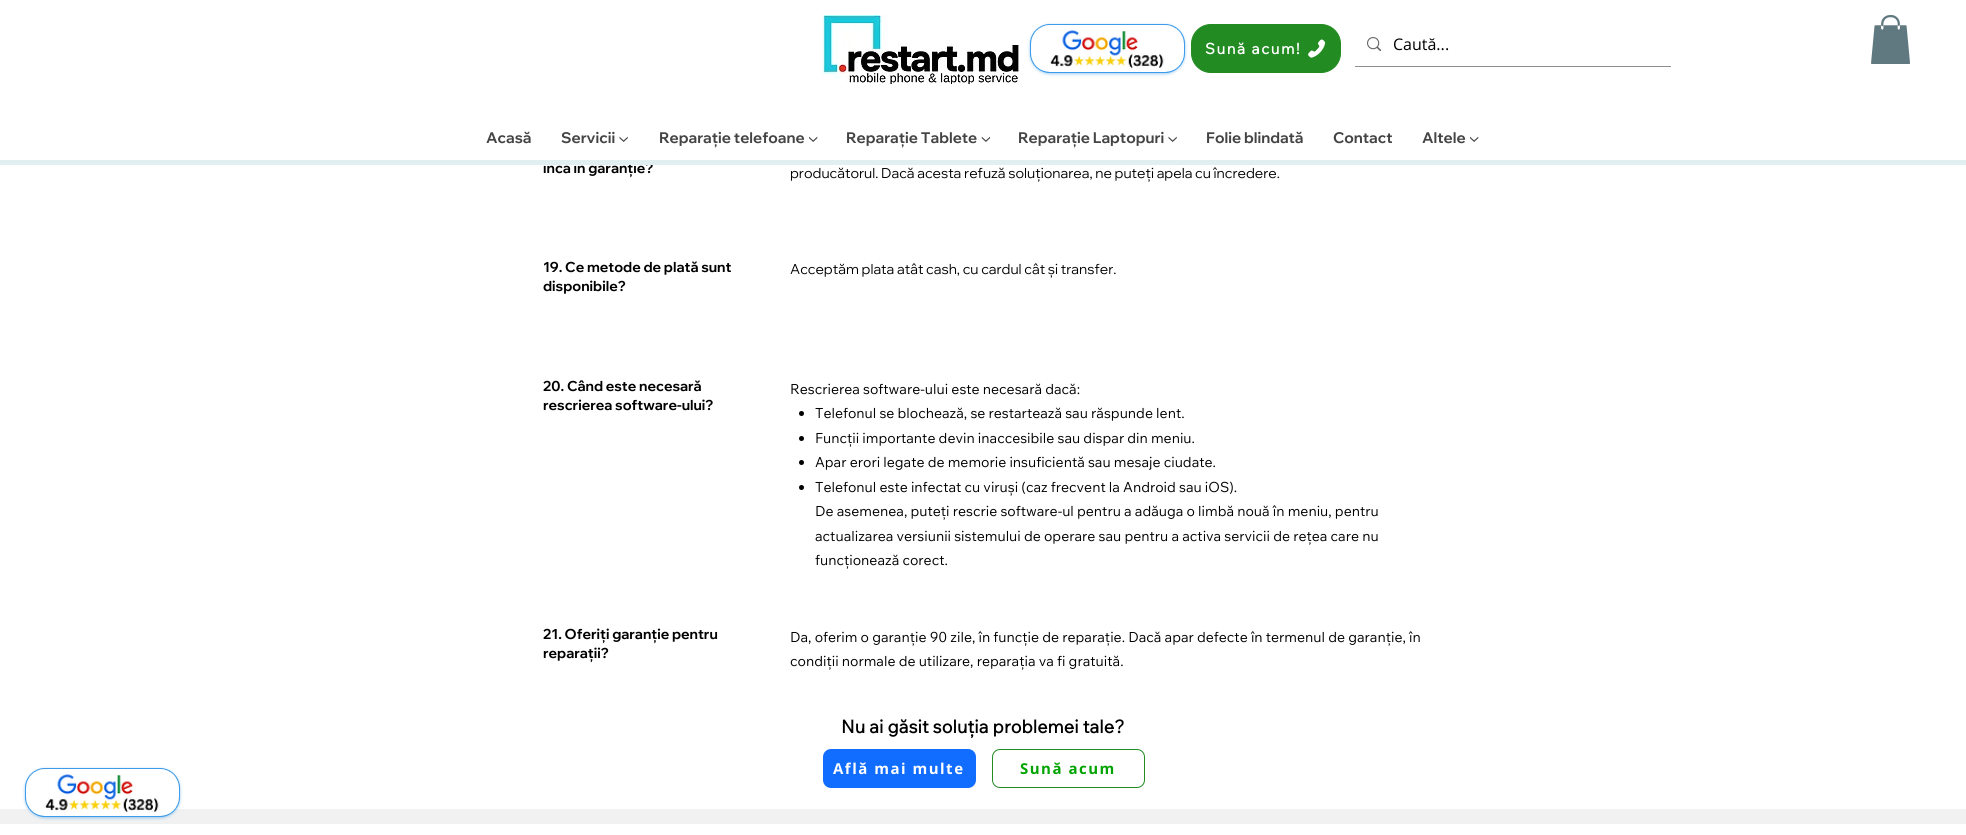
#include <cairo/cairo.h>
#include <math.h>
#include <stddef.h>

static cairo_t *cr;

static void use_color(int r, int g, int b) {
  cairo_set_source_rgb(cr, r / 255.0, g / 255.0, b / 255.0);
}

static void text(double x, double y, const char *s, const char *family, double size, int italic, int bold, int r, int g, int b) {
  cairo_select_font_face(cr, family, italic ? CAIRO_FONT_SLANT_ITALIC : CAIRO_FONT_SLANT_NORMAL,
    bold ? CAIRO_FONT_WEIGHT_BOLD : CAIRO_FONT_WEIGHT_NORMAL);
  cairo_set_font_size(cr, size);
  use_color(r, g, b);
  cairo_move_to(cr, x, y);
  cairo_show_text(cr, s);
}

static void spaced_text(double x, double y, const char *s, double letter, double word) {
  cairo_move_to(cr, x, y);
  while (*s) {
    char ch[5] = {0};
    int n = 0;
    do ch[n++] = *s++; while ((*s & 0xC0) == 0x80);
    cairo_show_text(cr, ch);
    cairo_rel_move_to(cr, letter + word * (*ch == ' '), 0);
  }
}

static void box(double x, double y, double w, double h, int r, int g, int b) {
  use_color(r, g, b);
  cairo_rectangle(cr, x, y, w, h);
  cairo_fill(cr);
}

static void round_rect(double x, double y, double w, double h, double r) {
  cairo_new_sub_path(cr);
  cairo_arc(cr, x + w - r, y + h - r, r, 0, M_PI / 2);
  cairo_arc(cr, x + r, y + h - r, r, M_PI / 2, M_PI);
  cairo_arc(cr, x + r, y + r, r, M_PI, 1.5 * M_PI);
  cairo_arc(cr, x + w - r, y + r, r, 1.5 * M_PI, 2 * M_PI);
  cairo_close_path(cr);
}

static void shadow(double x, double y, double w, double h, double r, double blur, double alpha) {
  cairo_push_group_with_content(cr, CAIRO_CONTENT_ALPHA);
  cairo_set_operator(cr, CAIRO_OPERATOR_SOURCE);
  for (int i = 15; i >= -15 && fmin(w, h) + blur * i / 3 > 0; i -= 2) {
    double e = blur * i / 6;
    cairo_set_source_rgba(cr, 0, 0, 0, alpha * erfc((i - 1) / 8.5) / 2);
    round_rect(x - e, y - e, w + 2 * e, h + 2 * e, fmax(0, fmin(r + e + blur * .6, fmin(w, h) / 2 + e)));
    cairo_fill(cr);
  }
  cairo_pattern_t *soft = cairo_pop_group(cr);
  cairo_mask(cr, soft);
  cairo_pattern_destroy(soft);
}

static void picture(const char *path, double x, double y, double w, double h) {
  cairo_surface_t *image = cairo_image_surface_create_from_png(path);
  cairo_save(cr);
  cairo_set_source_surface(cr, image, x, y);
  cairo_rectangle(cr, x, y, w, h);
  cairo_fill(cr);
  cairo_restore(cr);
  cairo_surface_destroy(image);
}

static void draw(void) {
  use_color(255, 255, 255);
  cairo_paint(cr);
  picture("img_01.png", 822, 15, 197, 69);
  use_color(61, 155, 233);
  shadow(1030, 25, 155, 49, 20, 1.5, 0.5);
  use_color(61, 155, 233);
  round_rect(1030.5, 24.5, 154, 48, 19.5);
  cairo_fill_preserve(cr);
  cairo_set_line_width(cr, 1);
  cairo_stroke(cr);
  picture("img_02.png", 1031, 25, 153, 47);
  use_color(34, 139, 34);
  round_rect(1191.5, 24.5, 149, 48, 19.5);
  cairo_fill_preserve(cr);
  cairo_stroke(cr);
  picture("img_03.png", 1308, 39, 18, 19);
  box(1355, 66, 316, 1, 143, 143, 143);
  picture("img_04.png", 1367, 37, 14, 14);
  picture("img_05.png", 1871, 15, 39, 49);
  use_color(0, 0, 0);
  cairo_arc(cr, 801.5, 413.5, 2.5, 0, 2 * M_PI);
  cairo_fill(cr);
  cairo_arc(cr, 801.5, 438.5, 2.5, 0, 2 * M_PI);
  cairo_fill(cr);
  cairo_arc(cr, 801.5, 462.5, 2.5, 0, 2 * M_PI);
  cairo_fill(cr);
  cairo_arc(cr, 801.5, 487.5, 2.5, 0, 2 * M_PI);
  cairo_fill(cr);
  use_color(17, 109, 255);
  round_rect(823, 749, 153, 39, 8);
  cairo_fill(cr);
  round_rect(992.5, 749.5, 152, 38, 7.5);
  use_color(34, 139, 34);
  cairo_stroke(cr);
  box(0, 809, 1966, 15, 241, 241, 241);
  use_color(61, 155, 233);
  shadow(25, 769, 155, 49, 20, 1.5, 0.5);
  use_color(61, 155, 233);
  round_rect(25.5, 768.5, 154, 48, 19.5);
  cairo_fill_preserve(cr);
  cairo_stroke(cr);
  picture("img_06.png", 26, 769, 153, 47);
  cairo_select_font_face(cr, "Wix Madefor Text", CAIRO_FONT_SLANT_NORMAL, CAIRO_FONT_WEIGHT_BOLD);
  cairo_set_font_size(cr, 15);
  use_color(255, 255, 255);
  spaced_text(1205, 54, "Sună acum!", 1.5, 0);
  text(1393, 50, "Caută...", "Open Sans", 16, 0, 0, 0, 0, 0);
  text(486, 143, "Acasă", "Wix Madefor Display", 15, 0, 1, 68, 68, 68);
  text(561, 143, "Servicii ▼", "Wix Madefor Display", 15, 0, 1, 68, 68, 68);
  text(659, 143, "Reparație telefoane ▼", "Wix Madefor Display", 15, 0, 1, 68, 68, 68);
  text(846, 143, "Reparație Tablete ▼", "Wix Madefor Display", 15, 0, 1, 68, 68, 68);
  text(1018, 143, "Reparație Laptopuri ▼", "Wix Madefor Display", 15, 0, 1, 68, 68, 68);
  text(1206, 143, "Folie blindată", "Wix Madefor Display", 15, 0, 1, 68, 68, 68);
  text(1333, 143, "Contact", "Wix Madefor Display", 15, 0, 1, 68, 68, 68);
  text(1422, 143, "Altele ▼", "Wix Madefor Display", 15, 0, 1, 68, 68, 68);
  text(543, 173, "încă în garanție?", "Wix Madefor Display", 14, 0, 1, 0, 0, 0);
  box(0, 160, 1966, 5, 225, 239, 242);
  text(790, 178, "producătorul. Dacă acesta refuză soluționarea, ne puteți apela cu încredere.", "Wix Madefor Display", 14, 0, 0, 0, 0, 0);
  text(543, 272, "19. Ce metode de plată sunt", "Wix Madefor Display", 14, 0, 1, 0, 0, 0);
  text(543, 291, "disponibile?", "Wix Madefor Display", 14, 0, 1, 0, 0, 0);
  text(790, 274, "Acceptăm plata atât cash, cu cardul cât și transfer.", "Wix Madefor Display", 14, 0, 0, 0, 0, 0);
  text(543, 391, "20. Când este necesară", "Wix Madefor Display", 14, 0, 1, 0, 0, 0);
  text(543, 410, "rescrierea software-ului?", "Wix Madefor Display", 14, 0, 1, 0, 0, 0);
  text(790, 394, "Rescrierea software-ului este necesară dacă:", "Wix Madefor Text", 14, 0, 0, 0, 0, 0);
  text(815, 418, "Telefonul se blochează, se restartează sau răspunde lent.", "Wix Madefor Text", 14, 0, 0, 0, 0, 0);
  text(815, 443, "Funcții importante devin inaccesibile sau dispar din meniu.", "Wix Madefor Text", 14, 0, 0, 0, 0, 0);
  text(815, 467, "Apar erori legate de memorie insuficientă sau mesaje ciudate.", "Wix Madefor Text", 14, 0, 0, 0, 0, 0);
  text(815, 492, "Telefonul este infectat cu viruși (caz frecvent la Android sau iOS).", "Wix Madefor Text", 14, 0, 0, 0, 0, 0);
  text(815, 516, "De asemenea, puteți rescrie software-ul pentru a adăuga o limbă nouă în meniu, pentru", "Wix Madefor Text", 14, 0, 0, 0, 0, 0);
  text(815, 541, "actualizarea versiunii sistemului de operare sau pentru a activa servicii de rețea care nu", "Wix Madefor Text", 14, 0, 0, 0, 0, 0);
  text(815, 565, "funcționează corect.", "Wix Madefor Text", 14, 0, 0, 0, 0, 0);
  text(543, 639, "21. Oferiți garanție pentru", "Wix Madefor Display", 14, 0, 1, 0, 0, 0);
  text(543, 658, "reparații?", "Wix Madefor Display", 14, 0, 1, 0, 0, 0);
  text(790, 642, "Da, oferim o garanție 90 zile, în funcție de reparație. Dacă apar defecte în termenul de garanție, în", "Wix Madefor Text", 14, 0, 0, 0, 0, 0);
  text(790, 666, "condiții normale de utilizare, reparația va fi gratuită.", "Wix Madefor Text", 14, 0, 0, 0, 0, 0);
  text(841, 733, "Nu ai găsit soluția problemei tale?", "Wix Madefor Text", 18, 0, 1, 0, 0, 0);
  cairo_select_font_face(cr, "Open Sans", CAIRO_FONT_SLANT_NORMAL, CAIRO_FONT_WEIGHT_BOLD);
  cairo_set_font_size(cr, 15);
  use_color(255, 255, 255);
  spaced_text(833, 774, "Află mai multe", 1.5, 0);
  use_color(0, 163, 0);
  spaced_text(1020, 774, "Sună acum", 1.5, 0);
}

int main(void) {
  cairo_surface_t *surface = cairo_image_surface_create(CAIRO_FORMAT_RGB24, 1966, 835);
  cr = cairo_create(surface);
  cairo_font_options_t *options = cairo_font_options_create();
  cairo_font_options_set_hint_metrics(options, CAIRO_HINT_METRICS_OFF);
  cairo_font_options_set_hint_style(options, CAIRO_HINT_STYLE_NONE);
  cairo_set_font_options(cr, options);
  cairo_set_miter_limit(cr, 4);
  draw();
  cairo_surface_write_to_png(surface, "out.png");
  cairo_font_options_destroy(options);
  cairo_destroy(cr);
  cairo_surface_destroy(surface);
  return 0;
}
